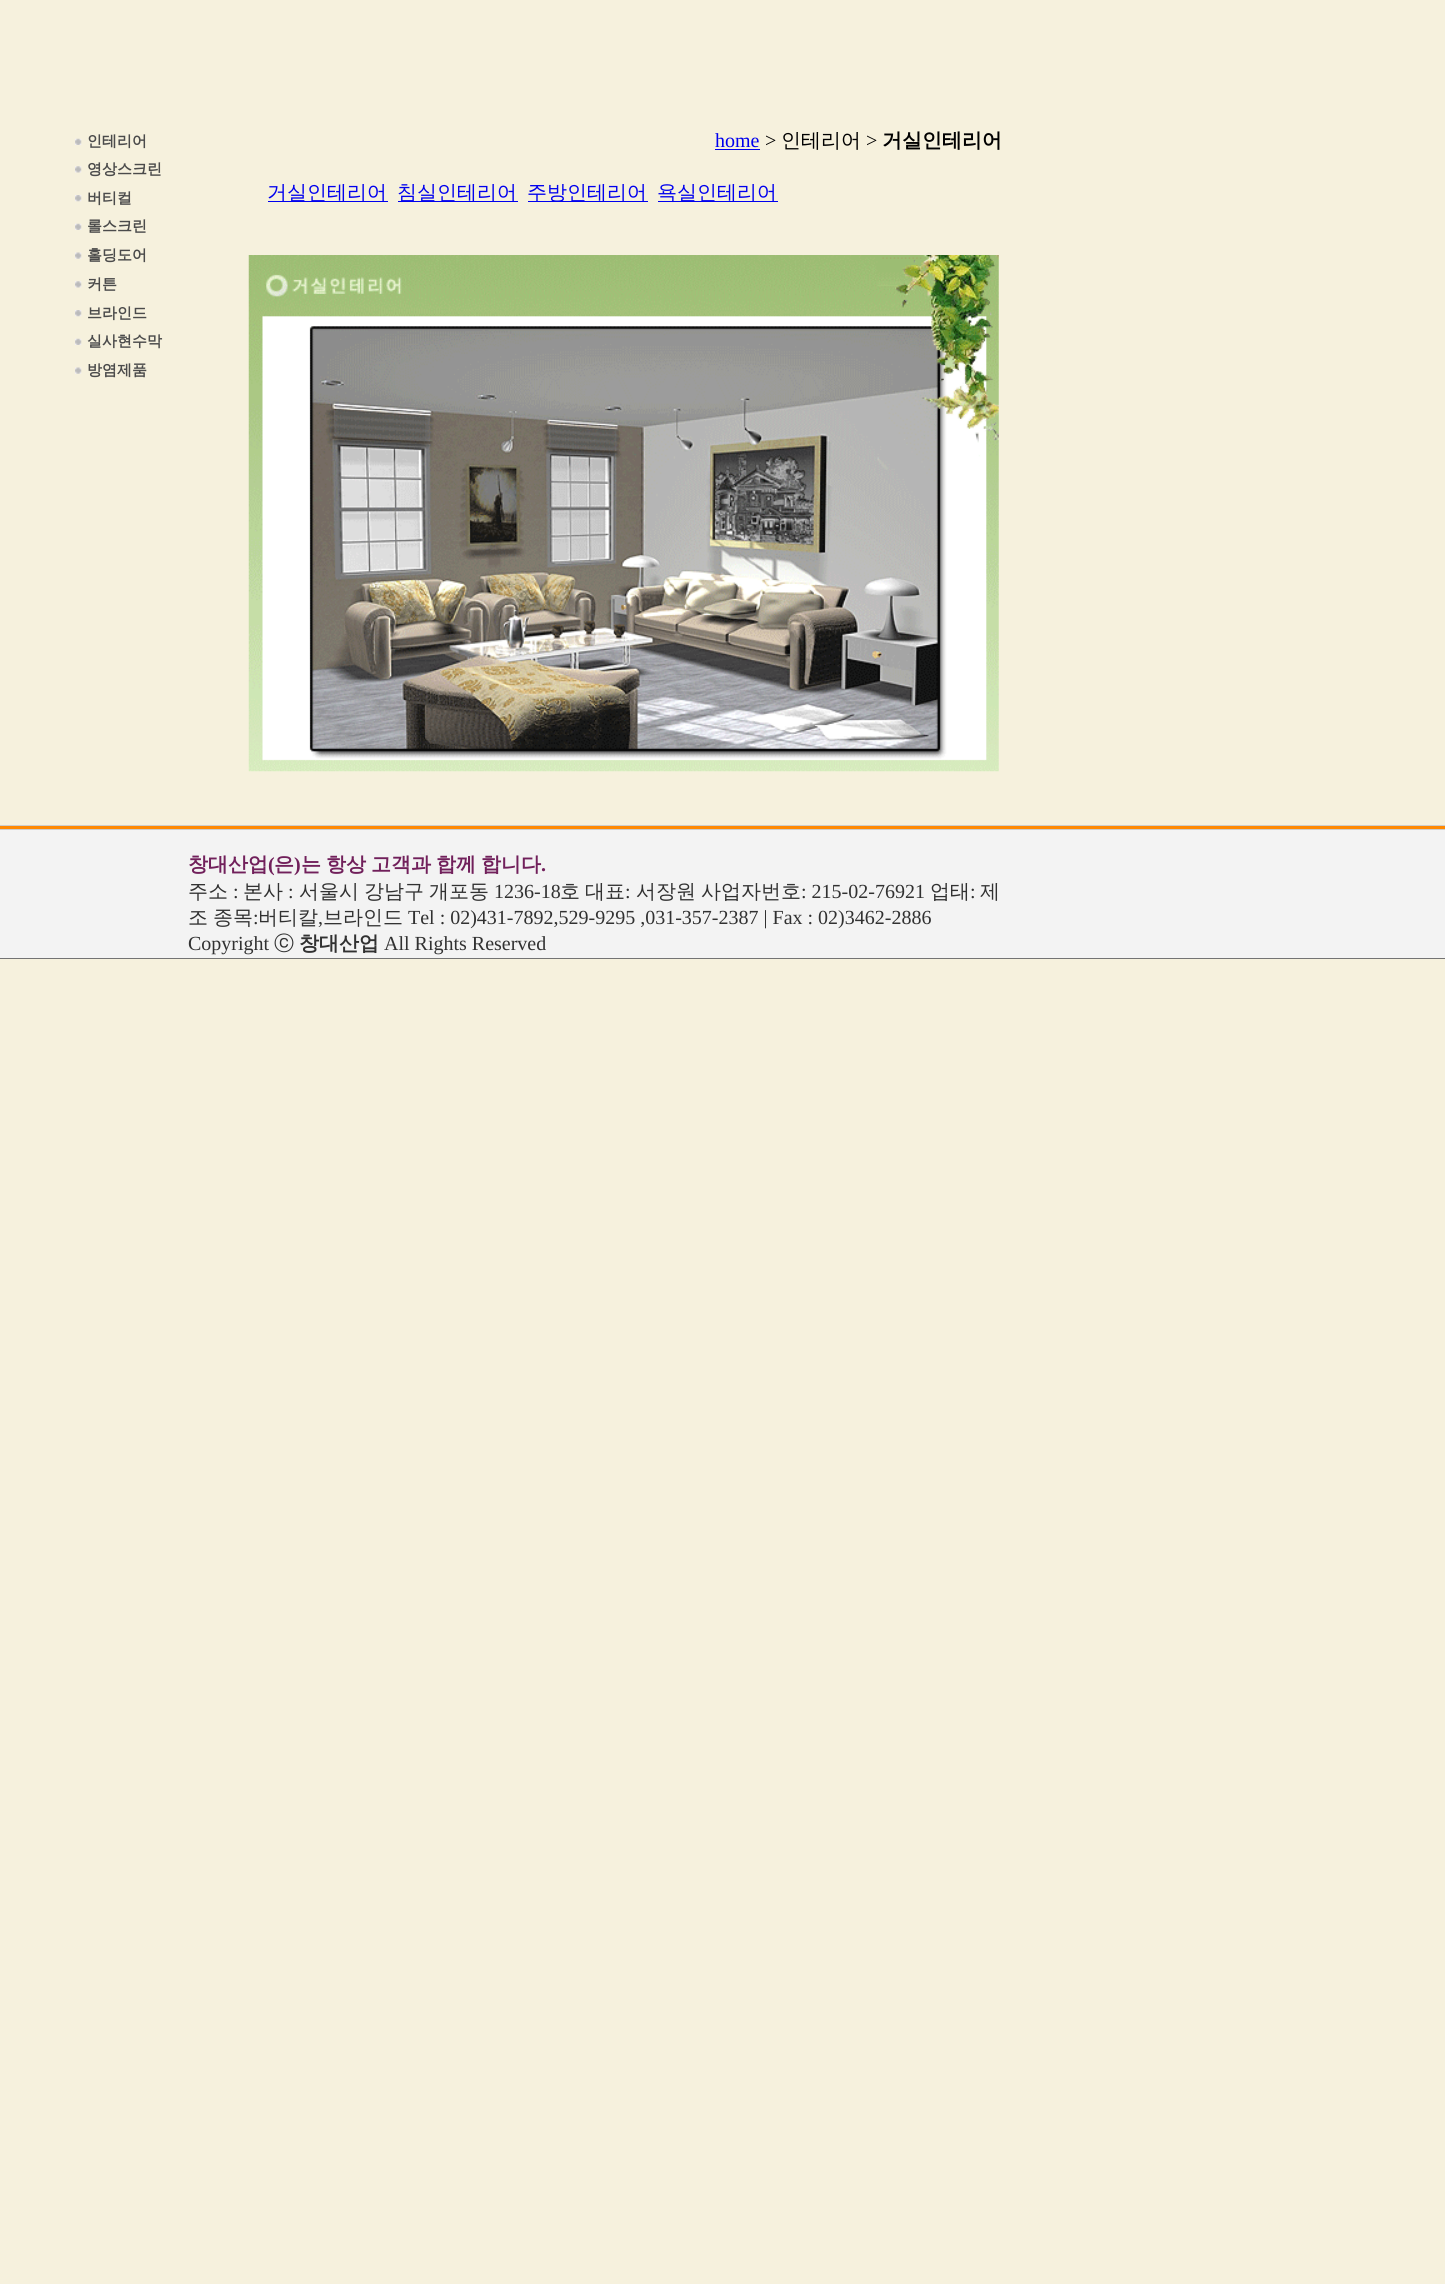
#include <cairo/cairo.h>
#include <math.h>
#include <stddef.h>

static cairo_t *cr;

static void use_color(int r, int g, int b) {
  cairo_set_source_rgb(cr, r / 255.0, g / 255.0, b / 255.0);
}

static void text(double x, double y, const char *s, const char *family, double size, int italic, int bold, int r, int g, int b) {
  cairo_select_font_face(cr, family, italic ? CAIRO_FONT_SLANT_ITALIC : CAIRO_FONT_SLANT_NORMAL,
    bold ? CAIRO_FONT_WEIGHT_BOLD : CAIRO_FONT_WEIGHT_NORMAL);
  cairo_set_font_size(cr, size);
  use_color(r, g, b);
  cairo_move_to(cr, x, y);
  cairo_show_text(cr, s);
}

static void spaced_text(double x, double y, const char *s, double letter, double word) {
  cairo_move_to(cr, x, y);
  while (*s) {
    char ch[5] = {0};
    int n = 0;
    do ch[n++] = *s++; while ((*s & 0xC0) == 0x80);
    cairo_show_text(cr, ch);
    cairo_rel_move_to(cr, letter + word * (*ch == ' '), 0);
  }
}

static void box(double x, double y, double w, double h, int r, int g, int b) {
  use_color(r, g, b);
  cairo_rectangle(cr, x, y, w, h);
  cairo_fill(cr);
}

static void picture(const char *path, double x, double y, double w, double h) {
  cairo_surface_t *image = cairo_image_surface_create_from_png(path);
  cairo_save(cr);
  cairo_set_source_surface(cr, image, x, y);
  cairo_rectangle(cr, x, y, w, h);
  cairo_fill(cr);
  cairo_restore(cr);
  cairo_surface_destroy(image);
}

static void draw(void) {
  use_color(246, 241, 221);
  cairo_paint(cr);
  picture("img_01.png", 75, 138, 7, 7);
  picture("img_02.png", 75, 166, 7, 7);
  picture("img_03.png", 75, 195, 7, 7);
  picture("img_01.png", 75, 223, 7, 7);
  picture("img_04.png", 75, 252, 7, 7);
  picture("img_02.png", 75, 281, 7, 7);
  picture("img_03.png", 75, 310, 7, 7);
  picture("img_01.png", 75, 338, 7, 7);
  picture("img_04.png", 75, 367, 7, 7);
  box(715, 149, 45, 1, 0, 0, 238);
  box(268, 201, 120, 1, 0, 0, 238);
  box(398, 201, 120, 1, 0, 0, 238);
  box(528, 201, 120, 1, 0, 0, 238);
  box(658, 201, 120, 1, 0, 0, 238);
  picture("img_05.png", 248, 255, 751, 517);
  box(0, 825, 1445, 1, 205, 205, 204);
  box(0, 826, 1445, 3, 255, 137, 1);
  box(0, 829, 1445, 1, 205, 205, 204);
  box(0, 830, 1445, 128, 243, 243, 243);
  box(0, 958, 1445, 1, 115, 115, 115);
  text(87, 146, "인테리어", "WenQuanYi Zen Hei", 15, 0, 1, 75, 75, 75);
  text(87, 174, "영상스크린", "WenQuanYi Zen Hei", 15, 0, 1, 75, 75, 75);
  text(87, 203, "버티컬", "WenQuanYi Zen Hei", 15, 0, 1, 75, 75, 75);
  text(87, 231, "롤스크린", "WenQuanYi Zen Hei", 15, 0, 1, 75, 75, 75);
  text(87, 260, "홀딩도어", "WenQuanYi Zen Hei", 15, 0, 1, 75, 75, 75);
  text(87, 289, "커튼", "WenQuanYi Zen Hei", 15, 0, 1, 75, 75, 75);
  text(87, 318, "브라인드", "WenQuanYi Zen Hei", 15, 0, 1, 75, 75, 75);
  text(87, 346, "실사현수막", "WenQuanYi Zen Hei", 15, 0, 1, 75, 75, 75);
  text(87, 375, "방염제품", "WenQuanYi Zen Hei", 15, 0, 1, 75, 75, 75);
  text(715, 147, "home", "Liberation Serif", 20, 0, 0, 0, 0, 238);
  text(765, 147, ">", "Liberation Serif", 20, 0, 0, 0, 0, 0);
  text(781, 147, "인테리어", "WenQuanYi Zen Hei Medium", 20, 0, 0, 0, 0, 0);
  text(866, 147, ">", "Liberation Serif", 20, 0, 0, 0, 0, 0);
  text(882, 147, "거실인테리어", "WenQuanYi Zen Hei", 20, 0, 1, 0, 0, 0);
  text(267, 199, "거실인테리어", "WenQuanYi Zen Hei Medium", 20, 0, 0, 0, 0, 238);
  text(397, 199, "침실인테리어", "WenQuanYi Zen Hei Medium", 20, 0, 0, 0, 0, 238);
  text(527, 199, "주방인테리어", "WenQuanYi Zen Hei Medium", 20, 0, 0, 0, 0, 238);
  text(657, 199, "욕실인테리어", "WenQuanYi Zen Hei Medium", 20, 0, 0, 0, 0, 238);
  text(188, 871, "창대산업", "WenQuanYi Zen Hei", 20, 0, 1, 113, 32, 91);
  text(268, 871, "(", "Liberation Serif", 20, 0, 1, 113, 32, 91);
  text(274, 871, "은", "WenQuanYi Zen Hei", 20, 0, 1, 113, 32, 91);
  text(294, 871, ")", "Liberation Serif", 20, 0, 1, 113, 32, 91);
  cairo_select_font_face(cr, "WenQuanYi Zen Hei", CAIRO_FONT_SLANT_NORMAL, CAIRO_FONT_WEIGHT_BOLD);
  spaced_text(301, 871, "는 항상 고객과 합께 합니다", 0, -1);
  text(541, 871, ".", "Liberation Serif", 20, 0, 1, 113, 32, 91);
  text(188, 898, "주소", "WenQuanYi Zen Hei Medium", 20, 0, 0, 49, 49, 49);
  text(233, 898, ":", "Liberation Serif", 20, 0, 0, 49, 49, 49);
  text(243, 898, "본사", "WenQuanYi Zen Hei Medium", 20, 0, 0, 49, 49, 49);
  text(288, 898, ":", "Liberation Serif", 20, 0, 0, 49, 49, 49);
  text(299, 898, "서울시", "WenQuanYi Zen Hei Medium", 20, 0, 0, 49, 49, 49);
  text(364, 898, "강남구", "WenQuanYi Zen Hei Medium", 20, 0, 0, 49, 49, 49);
  text(429, 898, "개포동", "WenQuanYi Zen Hei Medium", 20, 0, 0, 49, 49, 49);
  text(494, 898, "1236-18", "Liberation Serif", 20, 0, 0, 49, 49, 49);
  text(560, 898, "호", "WenQuanYi Zen Hei Medium", 20, 0, 0, 49, 49, 49);
  text(585, 898, "대표", "WenQuanYi Zen Hei Medium", 20, 0, 0, 49, 49, 49);
  text(625, 898, ":", "Liberation Serif", 20, 0, 0, 49, 49, 49);
  text(636, 898, "서장원", "WenQuanYi Zen Hei Medium", 20, 0, 0, 49, 49, 49);
  text(701, 898, "사업자번호", "WenQuanYi Zen Hei Medium", 20, 0, 0, 49, 49, 49);
  text(801, 898, ": 215-02-76921", "Liberation Serif", 20, 0, 0, 49, 49, 49);
  text(930, 898, "업태", "WenQuanYi Zen Hei Medium", 20, 0, 0, 49, 49, 49);
  text(970, 898, ":", "Liberation Serif", 20, 0, 0, 49, 49, 49);
  text(980, 898, "제", "WenQuanYi Zen Hei Medium", 20, 0, 0, 49, 49, 49);
  spaced_text(188, 924, "조 종목", 0, -1);
  text(253, 924, ":", "Liberation Serif", 20, 0, 0, 49, 49, 49);
  text(258, 924, "버티칼", "WenQuanYi Zen Hei Medium", 20, 0, 0, 49, 49, 49);
  text(318, 924, ",", "Liberation Serif", 20, 0, 0, 49, 49, 49);
  text(323, 924, "브라인드", "WenQuanYi Zen Hei Medium", 20, 0, 0, 49, 49, 49);
  text(408, 924, "Tel : 02)431-7892,529-9295 ,031-357-2387 | Fax : 02)3462-2886", "Liberation Serif", 20, 0, 0, 49, 49, 49);
  text(188, 950, "Copyright", "Liberation Serif", 20, 0, 0, 49, 49, 49);
  text(274, 950, "ⓒ", "WenQuanYi Zen Hei Medium", 20, 0, 0, 49, 49, 49);
  text(299, 950, "창대산업", "WenQuanYi Zen Hei", 20, 0, 1, 49, 49, 49);
  text(384, 950, "All Rights Reserved", "Liberation Serif", 20, 0, 0, 49, 49, 49);
}

int main(void) {
  cairo_surface_t *surface = cairo_image_surface_create(CAIRO_FORMAT_RGB24, 1445, 2284);
  cr = cairo_create(surface);
  cairo_font_options_t *options = cairo_font_options_create();
  cairo_font_options_set_hint_metrics(options, CAIRO_HINT_METRICS_OFF);
  cairo_font_options_set_hint_style(options, CAIRO_HINT_STYLE_NONE);
  cairo_set_font_options(cr, options);
  cairo_set_miter_limit(cr, 4);
  draw();
  cairo_surface_write_to_png(surface, "out.png");
  cairo_font_options_destroy(options);
  cairo_destroy(cr);
  cairo_surface_destroy(surface);
  return 0;
}
